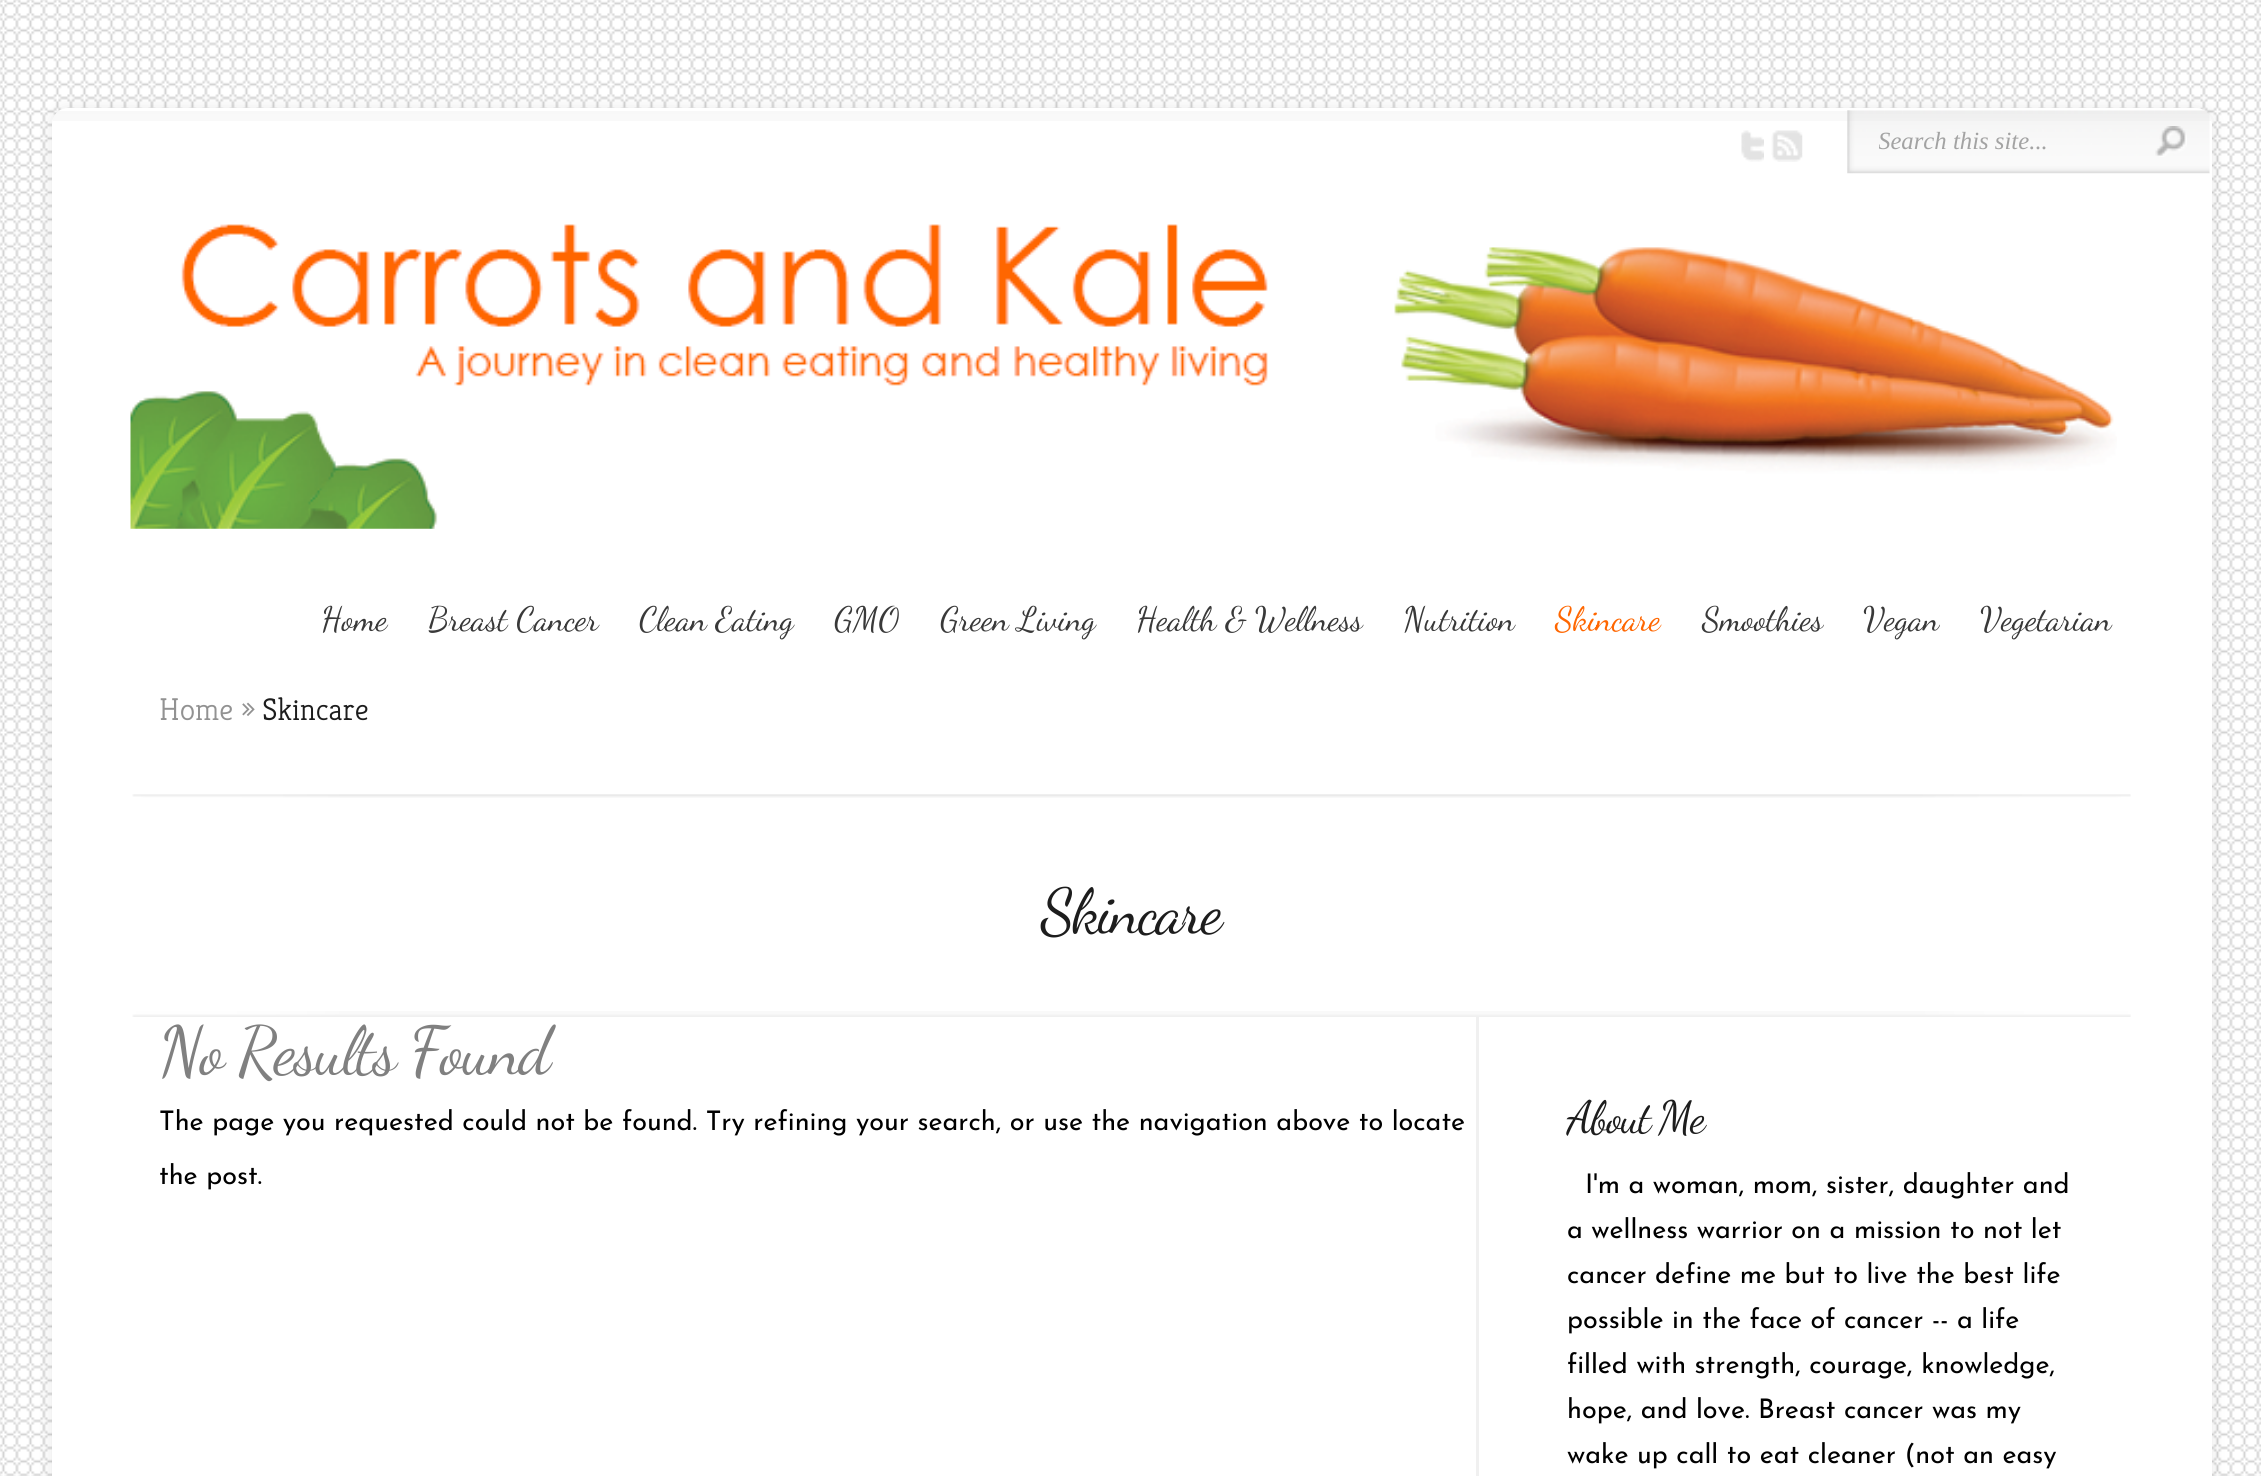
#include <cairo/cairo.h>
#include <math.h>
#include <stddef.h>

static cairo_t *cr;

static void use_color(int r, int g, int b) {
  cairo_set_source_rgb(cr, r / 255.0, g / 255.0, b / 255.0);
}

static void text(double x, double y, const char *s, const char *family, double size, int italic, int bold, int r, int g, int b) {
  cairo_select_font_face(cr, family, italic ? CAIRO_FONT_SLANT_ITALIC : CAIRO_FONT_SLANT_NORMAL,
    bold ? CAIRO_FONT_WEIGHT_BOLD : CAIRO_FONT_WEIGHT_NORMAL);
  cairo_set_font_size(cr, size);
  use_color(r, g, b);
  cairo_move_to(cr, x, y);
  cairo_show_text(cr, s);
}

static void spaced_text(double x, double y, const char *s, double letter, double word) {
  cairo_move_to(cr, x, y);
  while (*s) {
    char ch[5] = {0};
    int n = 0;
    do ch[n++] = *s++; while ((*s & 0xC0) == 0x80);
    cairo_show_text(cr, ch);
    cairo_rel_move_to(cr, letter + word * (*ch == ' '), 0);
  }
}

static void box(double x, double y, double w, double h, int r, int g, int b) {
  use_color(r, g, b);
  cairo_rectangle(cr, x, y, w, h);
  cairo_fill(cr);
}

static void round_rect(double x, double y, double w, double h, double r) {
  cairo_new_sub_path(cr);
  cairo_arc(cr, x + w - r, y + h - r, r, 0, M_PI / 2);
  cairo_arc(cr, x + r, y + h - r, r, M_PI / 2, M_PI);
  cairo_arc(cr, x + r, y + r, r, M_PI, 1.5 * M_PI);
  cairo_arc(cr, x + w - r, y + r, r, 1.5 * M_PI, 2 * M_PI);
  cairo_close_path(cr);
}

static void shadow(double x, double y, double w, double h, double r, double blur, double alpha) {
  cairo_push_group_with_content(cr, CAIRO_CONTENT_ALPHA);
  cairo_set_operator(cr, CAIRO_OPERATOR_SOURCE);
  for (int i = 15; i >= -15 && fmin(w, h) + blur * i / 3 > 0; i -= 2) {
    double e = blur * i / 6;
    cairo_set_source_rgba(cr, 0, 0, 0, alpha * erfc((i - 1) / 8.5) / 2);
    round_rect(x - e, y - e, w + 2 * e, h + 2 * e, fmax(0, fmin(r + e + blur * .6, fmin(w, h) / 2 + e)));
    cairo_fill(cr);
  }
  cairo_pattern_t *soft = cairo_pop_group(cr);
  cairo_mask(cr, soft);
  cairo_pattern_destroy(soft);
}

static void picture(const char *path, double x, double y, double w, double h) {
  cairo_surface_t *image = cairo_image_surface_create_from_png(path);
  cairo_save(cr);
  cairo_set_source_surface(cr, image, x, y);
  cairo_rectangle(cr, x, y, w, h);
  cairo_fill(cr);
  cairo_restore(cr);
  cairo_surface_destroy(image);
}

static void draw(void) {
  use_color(255, 255, 255);
  cairo_paint(cr);
  picture("img_01.png", 0, 0, 2261, 1476);
  use_color(0, 0, 0);
  shadow(52, 108, 2160, 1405, 16, 7, 0.1);
  use_color(255, 255, 255);
  round_rect(52, 108, 2160, 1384, 16);
  cairo_fill(cr);
  picture("img_02.png", 53, 111, 2158, 10);
  picture("img_03.png", 1741, 130, 23, 32);
  picture("img_04.png", 1771, 130, 32, 32);
  picture("img_05.png", 1847, 110, 363, 64);
  picture("img_06.png", 2155, 126, 32, 31);
  picture("img_07.png", 130, 224, 1987, 305);
  picture("img_08.png", 132, 794, 1999, 4);
  picture("img_09.png", 132, 1011, 1999, 6);
  box(1476, 1017, 3, 459, 240, 240, 240);
  cairo_save(cr);
  cairo_rectangle(cr, 1879, 126, 256, 27);
  cairo_clip(cr);
  text(1878, 149, "Search this site...", "Liberation Serif", 24.75, 1, 0, 163, 163, 163);
  cairo_restore(cr);
  text(321, 630, "Home", "Dancing Script", 33.75, 0, 0, 57, 57, 57);
  text(428, 630, "Breast Cancer", "Dancing Script", 33.75, 0, 0, 57, 57, 57);
  text(639, 630, "Clean Eating", "Dancing Script", 33.75, 0, 0, 57, 57, 57);
  text(834, 630, "GMO", "Dancing Script", 33.75, 0, 0, 57, 57, 57);
  text(940, 630, "Green Living", "Dancing Script", 33.75, 0, 0, 57, 57, 57);
  text(1136, 630, "Health & Wellness", "Dancing Script", 33.75, 0, 0, 57, 57, 57);
  text(1403, 630, "Nutrition", "Dancing Script", 33.75, 0, 0, 57, 57, 57);
  text(1555, 630, "Skincare", "Dancing Script", 33.75, 0, 0, 255, 102, 0);
  text(1702, 630, "Smoothies", "Dancing Script", 33.75, 0, 0, 57, 57, 57);
  text(1863, 630, "Vegan", "Dancing Script", 33.75, 0, 0, 57, 57, 57);
  text(1980, 630, "Vegetarian", "Dancing Script", 33.75, 0, 0, 57, 57, 57);
  text(159, 720, "Home »", "Kreon Light", 31.5, 0, 0, 146, 146, 146);
  text(262, 720, "Skincare", "Kreon Light", 31.5, 0, 0, 29, 29, 29);
  cairo_select_font_face(cr, "Dancing Script", CAIRO_FONT_SLANT_NORMAL, CAIRO_FONT_WEIGHT_NORMAL);
  cairo_set_font_size(cr, 63);
  spaced_text(1041, 932, "Skincare", -2.25, 0);
  cairo_set_font_size(cr, 67.5);
  use_color(128, 128, 128);
  spaced_text(159, 1073, "No Results Found", -2.25, 0);
  text(159, 1130, "The page you requested could not be found. Try refining your search, or use the navigation above to locate", "Josefin Sans Thin", 27, 0, 0, 0, 0, 0);
  text(159, 1184, "the post.", "Josefin Sans Thin", 27, 0, 0, 0, 0, 0);
  cairo_select_font_face(cr, "Dancing Script", CAIRO_FONT_SLANT_NORMAL, CAIRO_FONT_WEIGHT_NORMAL);
  cairo_set_font_size(cr, 45);
  use_color(29, 29, 29);
  spaced_text(1567, 1132, "About Me", -2.25, 0);
  text(1585, 1193, "I'm a woman, mom, sister, daughter and", "Josefin Sans Thin", 27, 0, 0, 0, 0, 0);
  text(1567, 1238, "a wellness warrior on a mission to not let", "Josefin Sans Thin", 27, 0, 0, 0, 0, 0);
  text(1567, 1283, "cancer define me but to live the best life", "Josefin Sans Thin", 27, 0, 0, 0, 0, 0);
  text(1567, 1328, "possible in the face of cancer -- a life", "Josefin Sans Thin", 27, 0, 0, 0, 0, 0);
  text(1567, 1373, "filled with strength, courage, knowledge,", "Josefin Sans Thin", 27, 0, 0, 0, 0, 0);
  text(1567, 1418, "hope, and love. Breast cancer was my", "Josefin Sans Thin", 27, 0, 0, 0, 0, 0);
  text(1567, 1463, "wake up call to eat cleaner (not an easy", "Josefin Sans Thin", 27, 0, 0, 0, 0, 0);
}

int main(void) {
  cairo_surface_t *surface = cairo_image_surface_create(CAIRO_FORMAT_RGB24, 2261, 1476);
  cr = cairo_create(surface);
  cairo_font_options_t *options = cairo_font_options_create();
  cairo_font_options_set_hint_metrics(options, CAIRO_HINT_METRICS_OFF);
  cairo_font_options_set_hint_style(options, CAIRO_HINT_STYLE_NONE);
  cairo_set_font_options(cr, options);
  cairo_set_miter_limit(cr, 4);
  draw();
  cairo_surface_write_to_png(surface, "out.png");
  cairo_font_options_destroy(options);
  cairo_destroy(cr);
  cairo_surface_destroy(surface);
  return 0;
}
